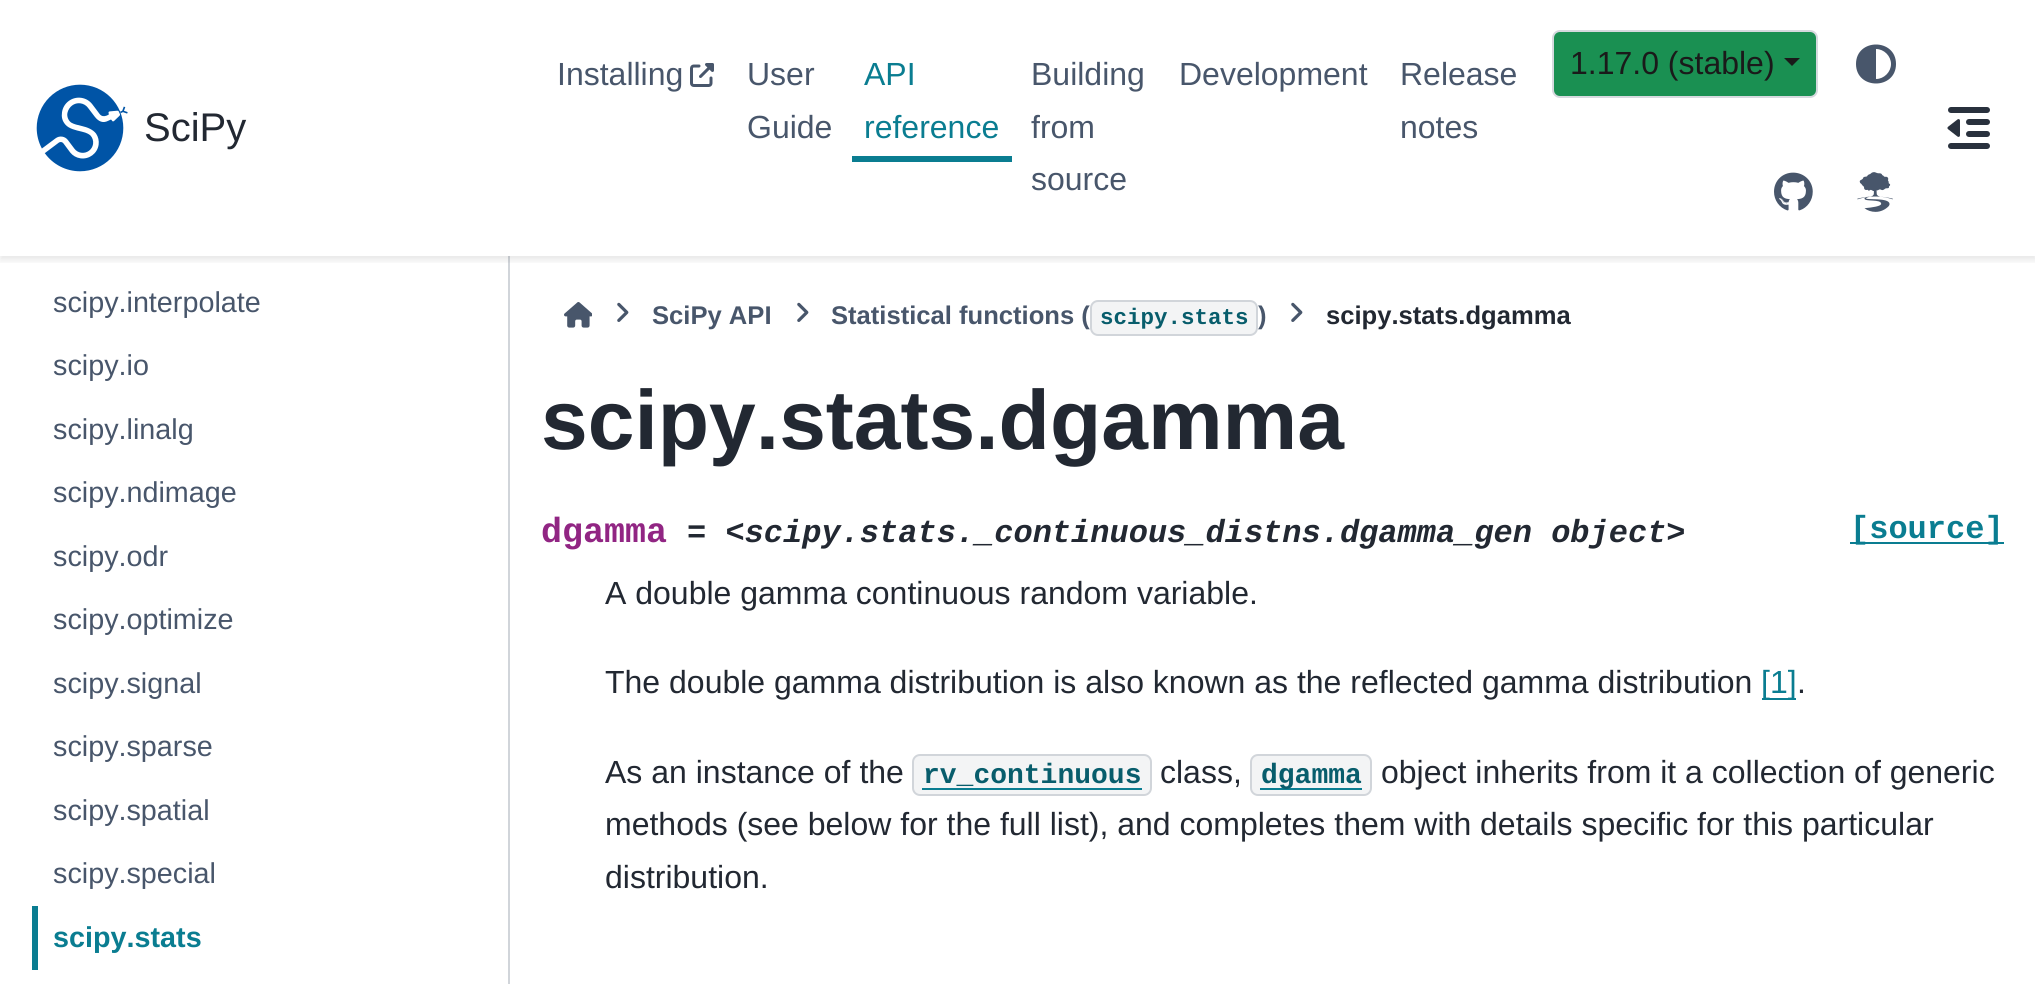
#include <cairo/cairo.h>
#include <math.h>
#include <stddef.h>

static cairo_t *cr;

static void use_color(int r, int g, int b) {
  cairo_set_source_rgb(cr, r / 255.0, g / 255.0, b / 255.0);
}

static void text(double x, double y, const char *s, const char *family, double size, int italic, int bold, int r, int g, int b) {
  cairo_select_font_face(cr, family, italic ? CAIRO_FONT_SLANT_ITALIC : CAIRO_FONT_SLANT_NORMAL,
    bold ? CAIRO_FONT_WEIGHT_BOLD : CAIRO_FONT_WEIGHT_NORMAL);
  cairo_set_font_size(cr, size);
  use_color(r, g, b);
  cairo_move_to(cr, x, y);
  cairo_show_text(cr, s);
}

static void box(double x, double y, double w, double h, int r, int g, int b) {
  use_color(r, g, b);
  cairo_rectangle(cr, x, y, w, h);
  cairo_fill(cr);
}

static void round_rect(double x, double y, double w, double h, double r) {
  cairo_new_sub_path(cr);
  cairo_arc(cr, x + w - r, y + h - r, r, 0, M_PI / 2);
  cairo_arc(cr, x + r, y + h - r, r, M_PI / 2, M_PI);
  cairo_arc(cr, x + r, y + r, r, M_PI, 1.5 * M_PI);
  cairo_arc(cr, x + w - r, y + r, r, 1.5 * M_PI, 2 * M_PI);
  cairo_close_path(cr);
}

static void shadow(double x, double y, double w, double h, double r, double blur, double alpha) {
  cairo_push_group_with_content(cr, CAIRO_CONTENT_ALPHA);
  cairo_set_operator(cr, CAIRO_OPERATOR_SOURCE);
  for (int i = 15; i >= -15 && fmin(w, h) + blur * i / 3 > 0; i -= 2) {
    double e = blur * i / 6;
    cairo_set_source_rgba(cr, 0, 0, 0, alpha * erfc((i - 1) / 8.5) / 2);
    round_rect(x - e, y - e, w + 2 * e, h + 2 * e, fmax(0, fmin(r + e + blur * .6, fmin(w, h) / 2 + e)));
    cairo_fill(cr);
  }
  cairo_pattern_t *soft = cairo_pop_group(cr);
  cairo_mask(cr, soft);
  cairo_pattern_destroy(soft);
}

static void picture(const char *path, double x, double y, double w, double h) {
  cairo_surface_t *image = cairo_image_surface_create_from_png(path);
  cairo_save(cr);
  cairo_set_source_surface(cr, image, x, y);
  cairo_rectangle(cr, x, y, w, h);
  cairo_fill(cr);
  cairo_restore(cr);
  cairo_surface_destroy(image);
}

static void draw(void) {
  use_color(255, 255, 255);
  cairo_paint(cr);
  box(508, 256, 2, 728, 209, 213, 218);
  cairo_save(cr);
  cairo_rectangle(cr, 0, 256, 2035, 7);
  cairo_clip(cr);
  use_color(0, 0, 0);
  shadow(0, 4, 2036, 256, 0, 4, 0.1);
  cairo_restore(cr);
  picture("img_01.png", 36, 84, 92, 88);
  picture("img_02.png", 690, 63, 24, 24);
  box(852, 156, 160, 6, 10, 125, 145);
  use_color(26, 144, 82);
  round_rect(1553, 31, 264, 66, 7);
  cairo_fill_preserve(cr);
  use_color(214, 217, 222);
  cairo_stroke(cr);
  use_color(26, 26, 26);
  cairo_new_path(cr);
  cairo_move_to(cr, 1784, 58);
  cairo_line_to(cr, 1800, 58);
  cairo_line_to(cr, 1792, 66);
  cairo_close_path(cr);
  cairo_fill(cr);
  use_color(72, 86, 107);
  cairo_new_path(cr);
  cairo_move_to(cr, 1891, 64);
  cairo_curve_to(cr, 1891, 56, 1884, 49, 1876, 49);
  cairo_line_to(cr, 1876, 79);
  cairo_curve_to(cr, 1884, 79, 1891, 72, 1891, 64);
  cairo_close_path(cr);
  cairo_move_to(cr, 1856, 64);
  cairo_curve_to(cr, 1856, 38, 1896, 38, 1896, 64);
  cairo_curve_to(cr, 1896, 90, 1856, 90, 1856, 64);
  cairo_close_path(cr);
  cairo_fill(cr);
  picture("img_03.png", 1774, 172, 39, 39);
  picture("img_04.png", 1857, 172, 36, 40);
  picture("img_05.png", 1947, 107, 43, 42);
  box(32, 906, 6, 64, 10, 125, 145);
  picture("img_06.png", 564, 302, 28, 26);
  picture("img_07.png", 617, 302, 12, 20);
  picture("img_07.png", 797, 302, 12, 20);
  picture("img_07.png", 1291, 302, 12, 20);
  box(1850, 542, 154, 2, 10, 125, 145);
  box(1762, 698, 34, 2, 10, 125, 145);
  use_color(243, 244, 245);
  round_rect(913, 755, 238, 40, 7);
  cairo_fill_preserve(cr);
  use_color(209, 213, 218);
  cairo_stroke(cr);
  box(922, 788, 220, 2, 10, 125, 145);
  use_color(243, 244, 245);
  round_rect(1251, 755, 120, 40, 7);
  cairo_fill_preserve(cr);
  use_color(209, 213, 218);
  cairo_stroke(cr);
  box(1260, 788, 102, 2, 10, 125, 145);
  text(144, 141, "SciPy", "Liberation Sans", 40, 0, 0, 34, 40, 50);
  text(557, 85, "Installing", "Liberation Sans", 32, 0, 0, 72, 86, 107);
  text(747, 85, "User", "Liberation Sans", 32, 0, 0, 72, 86, 107);
  text(747, 138, "Guide", "Liberation Sans", 32, 0, 0, 72, 86, 107);
  text(864, 85, "API", "Liberation Sans", 32, 0, 0, 10, 125, 145);
  text(864, 138, "reference", "Liberation Sans", 32, 0, 0, 10, 125, 145);
  text(1031, 85, "Building", "Liberation Sans", 32, 0, 0, 72, 86, 107);
  text(1031, 138, "from", "Liberation Sans", 32, 0, 0, 72, 86, 107);
  text(1031, 190, "source", "Liberation Sans", 32, 0, 0, 72, 86, 107);
  text(1179, 85, "Development", "Liberation Sans", 32, 0, 0, 72, 86, 107);
  text(1400, 85, "Release", "Liberation Sans", 32, 0, 0, 72, 86, 107);
  text(1400, 138, "notes", "Liberation Sans", 32, 0, 0, 72, 86, 107);
  text(1570, 74, "1.17.0 (stable)", "Liberation Sans", 32, 0, 0, 26, 26, 26);
  text(53, 312, "scipy.interpolate", "Liberation Sans", 28.75, 0, 0, 72, 86, 107);
  text(53, 375, "scipy.io", "Liberation Sans", 28.75, 0, 0, 72, 86, 107);
  text(53, 439, "scipy.linalg", "Liberation Sans", 28.75, 0, 0, 72, 86, 107);
  text(53, 502, "scipy.ndimage", "Liberation Sans", 28.75, 0, 0, 72, 86, 107);
  text(53, 566, "scipy.odr", "Liberation Sans", 28.75, 0, 0, 72, 86, 107);
  text(53, 629, "scipy.optimize", "Liberation Sans", 28.75, 0, 0, 72, 86, 107);
  text(53, 693, "scipy.signal", "Liberation Sans", 28.75, 0, 0, 72, 86, 107);
  text(53, 756, "scipy.sparse", "Liberation Sans", 28.75, 0, 0, 72, 86, 107);
  text(53, 820, "scipy.spatial", "Liberation Sans", 28.75, 0, 0, 72, 86, 107);
  text(53, 883, "scipy.special", "Liberation Sans", 28.75, 0, 0, 72, 86, 107);
  text(53, 947, "scipy.stats", "Liberation Sans", 28.75, 0, 1, 10, 125, 145);
  text(652, 324, "SciPy API", "Liberation Sans", 25.6, 0, 1, 72, 86, 107);
  text(831, 324, "Statistical functions (", "Liberation Sans", 25.6, 0, 1, 72, 86, 107);
  use_color(243, 244, 245);
  round_rect(1091, 301, 166, 34, 7);
  cairo_fill_preserve(cr);
  use_color(209, 213, 218);
  cairo_stroke(cr);
  text(1100, 324, "scipy.stats", "Liberation Mono", 22.5, 0, 1, 8, 93, 108);
  text(1258, 324, ")", "Liberation Sans", 25.6, 0, 1, 72, 86, 107);
  text(1326, 324, "scipy.stats.dgamma", "Liberation Sans", 25.6, 0, 1, 34, 40, 50);
  text(541, 449, "scipy.stats.dgamma", "Liberation Sans", 84, 0, 1, 34, 40, 50);
  text(541, 542, "dgamma", "Liberation Mono", 35, 0, 1, 145, 37, 131);
  text(687, 542, "= <scipy.stats._continuous_distns.dgamma_gen object>", "Liberation Mono", 32, 1, 1, 34, 40, 50);
  text(1850, 538, "[source]", "Liberation Mono", 32, 0, 1, 10, 125, 145);
  text(605, 604, "A double gamma continuous random variable.", "Liberation Sans", 32, 0, 0, 34, 40, 50);
  text(605, 693, "The double gamma distribution is also known as the reflected gamma distribution", "Liberation Sans", 32, 0, 0, 34, 40, 50);
  text(1761, 693, "[1]", "Liberation Sans", 32, 0, 0, 10, 125, 145);
  text(1797, 693, ".", "Liberation Sans", 32, 0, 0, 34, 40, 50);
  text(605, 783, "As an instance of the", "Liberation Sans", 32, 0, 0, 34, 40, 50);
  text(923, 783, "rv_continuous", "Liberation Mono", 28, 0, 1, 8, 93, 108);
  text(1160, 783, "class,", "Liberation Sans", 32, 0, 0, 34, 40, 50);
  text(1261, 783, "dgamma", "Liberation Mono", 28, 0, 1, 8, 93, 108);
  text(1381, 783, "object inherits from it a collection of generic", "Liberation Sans", 32, 0, 0, 34, 40, 50);
  text(605, 835, "methods (see below for the full list), and completes them with details specific for this particular", "Liberation Sans", 32, 0, 0, 34, 40, 50);
  text(605, 888, "distribution.", "Liberation Sans", 32, 0, 0, 34, 40, 50);
}

int main(void) {
  cairo_surface_t *surface = cairo_image_surface_create(CAIRO_FORMAT_RGB24, 2035, 984);
  cr = cairo_create(surface);
  cairo_font_options_t *options = cairo_font_options_create();
  cairo_font_options_set_hint_metrics(options, CAIRO_HINT_METRICS_OFF);
  cairo_font_options_set_hint_style(options, CAIRO_HINT_STYLE_NONE);
  cairo_set_font_options(cr, options);
  cairo_set_miter_limit(cr, 4);
  draw();
  cairo_surface_write_to_png(surface, "out.png");
  cairo_font_options_destroy(options);
  cairo_destroy(cr);
  cairo_surface_destroy(surface);
  return 0;
}
